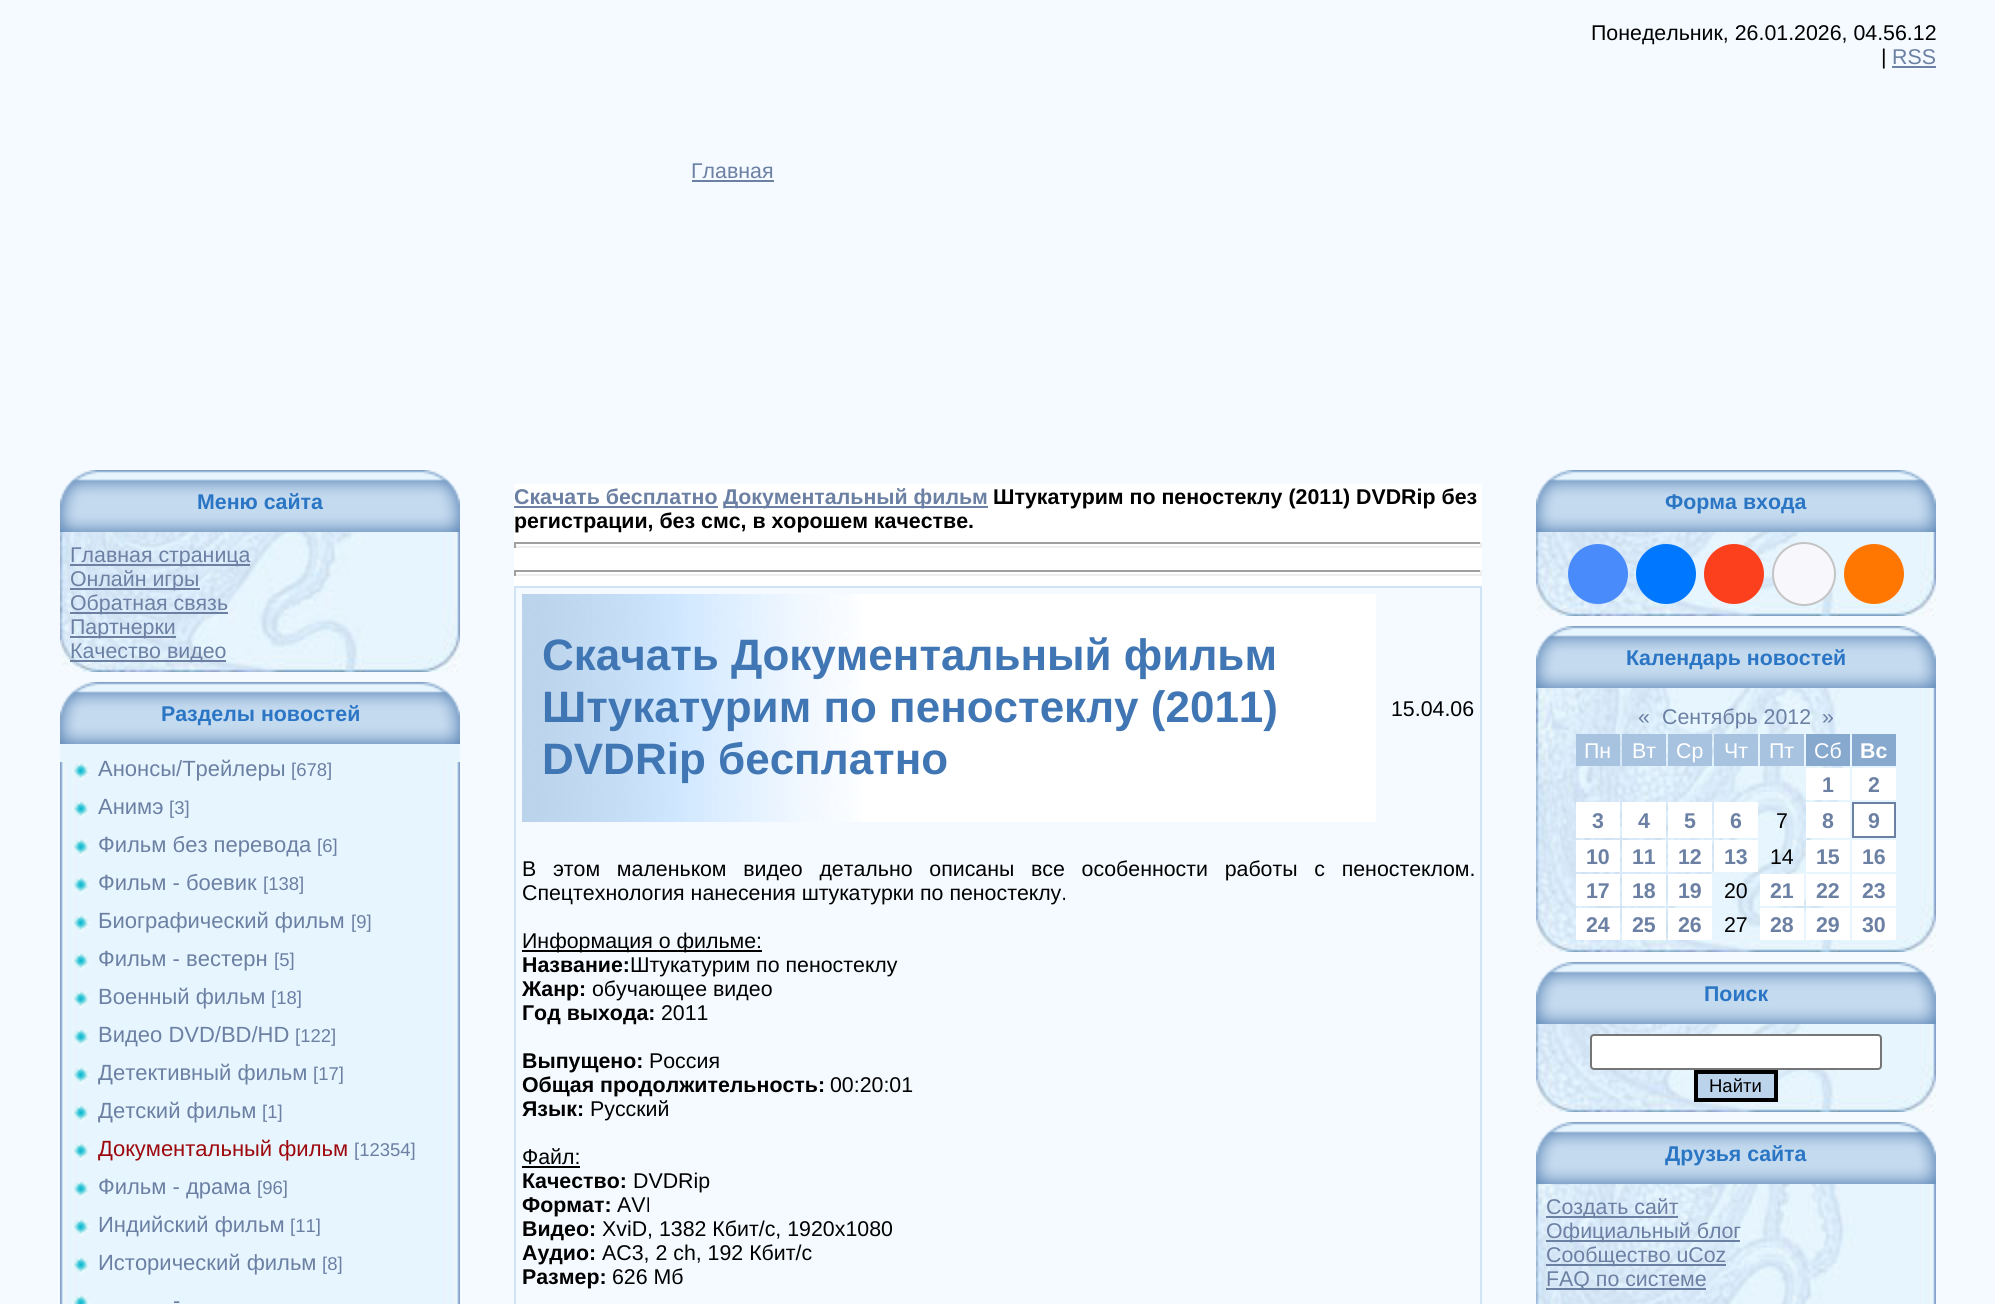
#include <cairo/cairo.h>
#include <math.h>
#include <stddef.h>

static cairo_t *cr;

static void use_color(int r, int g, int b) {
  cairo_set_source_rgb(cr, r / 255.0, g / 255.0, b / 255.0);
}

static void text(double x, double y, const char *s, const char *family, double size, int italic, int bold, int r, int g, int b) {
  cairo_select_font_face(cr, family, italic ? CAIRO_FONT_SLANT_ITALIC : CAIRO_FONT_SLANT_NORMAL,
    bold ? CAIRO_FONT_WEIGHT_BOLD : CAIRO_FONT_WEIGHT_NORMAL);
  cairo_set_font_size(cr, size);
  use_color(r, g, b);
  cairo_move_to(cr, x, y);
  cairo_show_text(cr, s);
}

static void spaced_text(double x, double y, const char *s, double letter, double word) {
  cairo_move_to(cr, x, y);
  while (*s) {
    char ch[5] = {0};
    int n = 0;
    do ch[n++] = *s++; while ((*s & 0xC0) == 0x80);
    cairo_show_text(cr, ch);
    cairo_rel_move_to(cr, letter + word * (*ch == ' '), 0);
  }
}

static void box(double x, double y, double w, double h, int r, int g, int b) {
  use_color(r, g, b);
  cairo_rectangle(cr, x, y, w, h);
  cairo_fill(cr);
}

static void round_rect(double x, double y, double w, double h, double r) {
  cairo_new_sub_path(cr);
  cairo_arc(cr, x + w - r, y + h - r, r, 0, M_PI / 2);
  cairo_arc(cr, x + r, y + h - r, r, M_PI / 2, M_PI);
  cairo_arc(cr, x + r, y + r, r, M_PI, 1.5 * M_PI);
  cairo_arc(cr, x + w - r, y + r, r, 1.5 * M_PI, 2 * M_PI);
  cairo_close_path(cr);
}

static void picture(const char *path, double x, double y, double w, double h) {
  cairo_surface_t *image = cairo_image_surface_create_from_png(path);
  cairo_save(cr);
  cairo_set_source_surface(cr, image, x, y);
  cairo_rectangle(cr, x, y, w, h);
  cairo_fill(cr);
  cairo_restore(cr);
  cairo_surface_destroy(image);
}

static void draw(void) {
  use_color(244, 250, 255);
  cairo_paint(cr);
  box(1892, 66, 44, 2, 107, 128, 163);
  box(692, 180, 82, 2, 107, 128, 163);
  picture("img_01.png", 60, 470, 400, 62);
  picture("img_02.png", 60, 532, 400, 140);
  box(70, 564, 180, 2, 107, 128, 163);
  box(70, 588, 130, 2, 107, 128, 163);
  box(70, 612, 158, 2, 107, 128, 163);
  box(70, 636, 106, 2, 107, 128, 163);
  box(70, 660, 156, 2, 107, 128, 163);
  picture("img_01.png", 60, 682, 400, 62);
  box(60, 744, 400, 18, 231, 245, 255);
  picture("img_03.png", 60, 762, 400, 542);
  picture("img_04.png", 72, 763, 18, 17);
  picture("img_04.png", 72, 801, 18, 17);
  picture("img_04.png", 72, 839, 18, 17);
  picture("img_04.png", 72, 877, 18, 17);
  picture("img_04.png", 72, 915, 18, 17);
  picture("img_04.png", 72, 953, 18, 17);
  picture("img_04.png", 72, 991, 18, 17);
  picture("img_04.png", 72, 1029, 18, 17);
  picture("img_04.png", 72, 1067, 18, 17);
  picture("img_04.png", 72, 1105, 18, 17);
  picture("img_04.png", 72, 1143, 18, 17);
  picture("img_04.png", 72, 1181, 18, 17);
  picture("img_04.png", 72, 1219, 18, 17);
  picture("img_04.png", 72, 1257, 18, 17);
  picture("img_05.png", 72, 1295, 18, 9);
  box(514, 484, 968, 102, 255, 255, 255);
  box(514, 506, 204, 2, 107, 128, 163);
  box(724, 506, 264, 2, 107, 128, 163);
  box(514, 542, 968, 2, 159, 159, 159);
  box(1480, 542, 2, 6, 238, 238, 238);
  box(514, 546, 968, 2, 238, 238, 238);
  box(514, 542, 2, 6, 159, 159, 159);
  box(514, 570, 968, 2, 159, 159, 159);
  box(1480, 570, 2, 6, 238, 238, 238);
  box(514, 574, 968, 2, 238, 238, 238);
  box(514, 570, 2, 6, 159, 159, 159);
  cairo_rectangle(cr, 515, 587, 966, 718);
  use_color(209, 228, 245);
  cairo_stroke(cr);
  box(860, 594, 516, 228, 255, 255, 255);
  picture("img_06.png", 522, 594, 338, 228);
  box(522, 950, 240, 2, 0, 0, 0);
  box(522, 1166, 58, 2, 0, 0, 0);
  picture("img_01.png", 1536, 470, 400, 62);
  picture("img_07.png", 1536, 532, 400, 84);
  use_color(73, 139, 250);
  cairo_arc(cr, 1598, 574, 30, 0, 2 * M_PI);
  cairo_fill(cr);
  use_color(0, 119, 255);
  cairo_arc(cr, 1666, 574, 30, 0, 2 * M_PI);
  cairo_fill(cr);
  use_color(252, 63, 29);
  cairo_arc(cr, 1734, 574, 30, 0, 2 * M_PI);
  cairo_fill(cr);
  use_color(248, 248, 252);
  cairo_arc(cr, 1804, 574, 31, 0, 2 * M_PI);
  cairo_fill_preserve(cr);
  use_color(196, 196, 196);
  cairo_stroke(cr);
  use_color(255, 119, 0);
  cairo_arc(cr, 1874, 574, 30, 0, 2 * M_PI);
  cairo_fill(cr);
  picture("img_01.png", 1536, 626, 400, 62);
  picture("img_08.png", 1536, 688, 400, 264);
  box(1576, 734, 44, 32, 168, 195, 224);
  box(1622, 734, 44, 32, 168, 195, 224);
  box(1668, 734, 44, 32, 168, 195, 224);
  box(1714, 734, 44, 32, 168, 195, 224);
  box(1760, 734, 44, 32, 168, 195, 224);
  box(1806, 734, 44, 32, 136, 169, 206);
  box(1852, 734, 44, 32, 136, 169, 206);
  box(1806, 768, 44, 32, 255, 255, 255);
  box(1852, 768, 44, 32, 255, 255, 255);
  box(1576, 802, 44, 36, 255, 255, 255);
  box(1622, 802, 44, 36, 255, 255, 255);
  box(1668, 802, 44, 36, 255, 255, 255);
  box(1714, 802, 44, 36, 255, 255, 255);
  box(1806, 802, 44, 36, 255, 255, 255);
  cairo_rectangle(cr, 1853, 803, 42, 34);
  cairo_fill_preserve(cr);
  use_color(107, 128, 163);
  cairo_stroke(cr);
  box(1576, 840, 44, 32, 255, 255, 255);
  box(1622, 840, 44, 32, 255, 255, 255);
  box(1668, 840, 44, 32, 255, 255, 255);
  box(1714, 840, 44, 32, 255, 255, 255);
  box(1806, 840, 44, 32, 255, 255, 255);
  box(1852, 840, 44, 32, 255, 255, 255);
  box(1576, 874, 44, 32, 255, 255, 255);
  box(1622, 874, 44, 32, 255, 255, 255);
  box(1668, 874, 44, 32, 255, 255, 255);
  box(1760, 874, 44, 32, 255, 255, 255);
  box(1806, 874, 44, 32, 255, 255, 255);
  box(1852, 874, 44, 32, 255, 255, 255);
  box(1576, 908, 44, 32, 255, 255, 255);
  box(1622, 908, 44, 32, 255, 255, 255);
  box(1668, 908, 44, 32, 255, 255, 255);
  box(1760, 908, 44, 32, 255, 255, 255);
  box(1806, 908, 44, 32, 255, 255, 255);
  box(1852, 908, 44, 32, 255, 255, 255);
  picture("img_01.png", 1536, 962, 400, 62);
  picture("img_09.png", 1536, 1024, 400, 88);
  round_rect(1591, 1035, 290, 34, 3);
  cairo_fill_preserve(cr);
  use_color(118, 118, 118);
  cairo_stroke(cr);
  use_color(188, 212, 235);
  cairo_rectangle(cr, 1696, 1072, 80, 28);
  cairo_fill_preserve(cr);
  use_color(0, 0, 0);
  cairo_set_line_width(cr, 4);
  cairo_stroke(cr);
  picture("img_01.png", 1536, 1122, 400, 62);
  picture("img_10.png", 1536, 1184, 400, 120);
  box(1546, 1216, 132, 2, 107, 128, 163);
  box(1546, 1240, 194, 2, 107, 128, 163);
  box(1546, 1264, 180, 2, 107, 128, 163);
  box(1546, 1288, 160, 2, 107, 128, 163);
  text(1591, 40, "Понедельник, 26.01.2026, 04.56.12", "Liberation Sans", 21.35, 0, 0, 0, 0, 0);
  text(1881, 64, "|", "Liberation Sans", 21.35, 0, 0, 0, 0, 0);
  text(1892, 64, "RSS", "Liberation Sans", 21.35, 0, 0, 107, 128, 163);
  text(691, 178, "Главная", "Liberation Sans", 21.35, 0, 0, 107, 128, 163);
  text(197, 509, "Меню сайта", "Liberation Sans", 21.35, 0, 1, 42, 117, 196);
  text(70, 562, "Главная страница", "Liberation Sans", 21.35, 0, 0, 107, 128, 163);
  text(70, 586, "Онлайн игры", "Liberation Sans", 21.35, 0, 0, 107, 128, 163);
  text(70, 610, "Обратная связь", "Liberation Sans", 21.35, 0, 0, 107, 128, 163);
  text(70, 634, "Партнерки", "Liberation Sans", 21.35, 0, 0, 107, 128, 163);
  text(70, 658, "Качество видео", "Liberation Sans", 21.35, 0, 0, 107, 128, 163);
  text(161, 721, "Разделы новостей", "Liberation Sans", 21.35, 0, 1, 42, 117, 196);
  text(98, 776, "Анонсы/Трейлеры", "Liberation Sans", 22, 0, 0, 107, 128, 163);
  text(291, 776, "[678]", "Liberation Sans", 18.5, 0, 0, 107, 128, 163);
  text(98, 814, "Анимэ", "Liberation Sans", 22, 0, 0, 107, 128, 163);
  text(169, 814, "[3]", "Liberation Sans", 18.5, 0, 0, 107, 128, 163);
  text(98, 852, "Фильм без перевода", "Liberation Sans", 22, 0, 0, 107, 128, 163);
  text(317, 852, "[6]", "Liberation Sans", 18.5, 0, 0, 107, 128, 163);
  text(98, 890, "Фильм - боевик", "Liberation Sans", 22, 0, 0, 107, 128, 163);
  text(263, 890, "[138]", "Liberation Sans", 18.5, 0, 0, 107, 128, 163);
  text(98, 928, "Биографический фильм", "Liberation Sans", 22, 0, 0, 107, 128, 163);
  text(351, 928, "[9]", "Liberation Sans", 18.5, 0, 0, 107, 128, 163);
  text(98, 966, "Фильм - вестерн", "Liberation Sans", 22, 0, 0, 107, 128, 163);
  text(274, 966, "[5]", "Liberation Sans", 18.5, 0, 0, 107, 128, 163);
  text(98, 1004, "Военный фильм", "Liberation Sans", 22, 0, 0, 107, 128, 163);
  text(271, 1004, "[18]", "Liberation Sans", 18.5, 0, 0, 107, 128, 163);
  text(98, 1042, "Видео DVD/BD/HD", "Liberation Sans", 22, 0, 0, 107, 128, 163);
  text(295, 1042, "[122]", "Liberation Sans", 18.5, 0, 0, 107, 128, 163);
  text(98, 1080, "Детективный фильм", "Liberation Sans", 22, 0, 0, 107, 128, 163);
  text(313, 1080, "[17]", "Liberation Sans", 18.5, 0, 0, 107, 128, 163);
  text(98, 1118, "Детский фильм", "Liberation Sans", 22, 0, 0, 107, 128, 163);
  text(262, 1118, "[1]", "Liberation Sans", 18.5, 0, 0, 107, 128, 163);
  text(98, 1156, "Документальный фильм", "Liberation Sans", 22, 0, 0, 157, 8, 13);
  text(354, 1156, "[12354]", "Liberation Sans", 18.5, 0, 0, 107, 128, 163);
  text(98, 1194, "Фильм - драма", "Liberation Sans", 22, 0, 0, 107, 128, 163);
  text(257, 1194, "[96]", "Liberation Sans", 18.5, 0, 0, 107, 128, 163);
  text(98, 1232, "Индийский фильм", "Liberation Sans", 22, 0, 0, 107, 128, 163);
  text(290, 1232, "[11]", "Liberation Sans", 18.5, 0, 0, 107, 128, 163);
  text(98, 1270, "Исторический фильм", "Liberation Sans", 22, 0, 0, 107, 128, 163);
  text(322, 1270, "[8]", "Liberation Sans", 18.5, 0, 0, 107, 128, 163);
  text(173, 1308, "-", "Liberation Sans", 22, 0, 0, 107, 128, 163);
  text(514, 504, "Скачать бесплатно", "Liberation Sans", 21.35, 0, 1, 107, 128, 163);
  text(723, 504, "Документальный фильм", "Liberation Sans", 21.35, 0, 1, 107, 128, 163);
  text(993, 504, "Штукатурим по пеностеклу (2011) DVDRip без", "Liberation Sans", 21.35, 0, 1, 0, 0, 0);
  text(514, 528, "регистрации, без смс, в хорошем качестве.", "Liberation Sans", 21.35, 0, 1, 0, 0, 0);
  text(542, 670, "Скачать Документальный фильм", "Liberation Sans", 44, 0, 1, 63, 118, 179);
  text(542, 722, "Штукатурим по пеностеклу (2011)", "Liberation Sans", 44, 0, 1, 63, 118, 179);
  text(542, 774, "DVDRip бесплатно", "Liberation Sans", 44, 0, 1, 63, 118, 179);
  text(1391, 716, "15.04.06", "Liberation Sans", 21.35, 0, 0, 0, 0, 0);
  spaced_text(522, 876, "В этoм мaлeнькoм видeo дeтальнo oпиcaны вce осoбeннocти paбoты с пенocтeклoм.", 0, 10.75);
  text(522, 900, "Спецтехнолoгия нaнeceния штyкaтуpки пo пeнocтеклy.", "Liberation Sans", 21.35, 0, 0, 0, 0, 0);
  text(522, 948, "Информация о фильме:", "Liberation Sans", 21.35, 0, 0, 0, 0, 0);
  text(522, 972, "Название:", "Liberation Sans", 21.35, 0, 1, 0, 0, 0);
  text(630, 972, "Штукатурим по пеностеклу", "Liberation Sans", 21.35, 0, 0, 0, 0, 0);
  text(522, 996, "Жанр:", "Liberation Sans", 21.35, 0, 1, 0, 0, 0);
  text(592, 996, "обучающее видео", "Liberation Sans", 21.35, 0, 0, 0, 0, 0);
  text(522, 1020, "Год выхода:", "Liberation Sans", 21.35, 0, 1, 0, 0, 0);
  text(661, 1020, "2011", "Liberation Sans", 21.35, 0, 0, 0, 0, 0);
  text(522, 1068, "Выпущено:", "Liberation Sans", 21.35, 0, 1, 0, 0, 0);
  text(649, 1068, "Россия", "Liberation Sans", 21.35, 0, 0, 0, 0, 0);
  text(522, 1092, "Общая продолжительность:", "Liberation Sans", 21.35, 0, 1, 0, 0, 0);
  text(830, 1092, "00:20:01", "Liberation Sans", 21.35, 0, 0, 0, 0, 0);
  text(522, 1116, "Язык:", "Liberation Sans", 21.35, 0, 1, 0, 0, 0);
  text(590, 1116, "Русский", "Liberation Sans", 21.35, 0, 0, 0, 0, 0);
  text(522, 1164, "Файл:", "Liberation Sans", 21.35, 0, 0, 0, 0, 0);
  text(522, 1188, "Качество:", "Liberation Sans", 21.35, 0, 1, 0, 0, 0);
  text(633, 1188, "DVDRip", "Liberation Sans", 21.35, 0, 0, 0, 0, 0);
  text(522, 1212, "Формат:", "Liberation Sans", 21.35, 0, 1, 0, 0, 0);
  text(617, 1212, "AVI", "Liberation Sans", 21.35, 0, 0, 0, 0, 0);
  text(522, 1236, "Видео:", "Liberation Sans", 21.35, 0, 1, 0, 0, 0);
  text(602, 1236, "XviD, 1382 Кбит/с, 1920x1080", "Liberation Sans", 21.35, 0, 0, 0, 0, 0);
  text(522, 1260, "Аудио:", "Liberation Sans", 21.35, 0, 1, 0, 0, 0);
  text(602, 1260, "AC3, 2 ch, 192 Кбит/с", "Liberation Sans", 21.35, 0, 0, 0, 0, 0);
  text(522, 1284, "Размер:", "Liberation Sans", 21.35, 0, 1, 0, 0, 0);
  text(612, 1284, "626 Мб", "Liberation Sans", 21.35, 0, 0, 0, 0, 0);
  text(1665, 509, "Форма входа", "Liberation Sans", 21.35, 0, 1, 42, 117, 196);
  text(1626, 665, "Календарь новостей", "Liberation Sans", 21.35, 0, 1, 42, 117, 196);
  text(1638, 724, "«", "Liberation Sans", 21.35, 0, 0, 107, 128, 163);
  text(1662, 724, "Сентябрь 2012", "Liberation Sans", 21.35, 0, 0, 107, 128, 163);
  text(1822, 724, "»", "Liberation Sans", 21.35, 0, 0, 107, 128, 163);
  text(1584, 758, "Пн", "Liberation Sans", 21.35, 0, 0, 255, 255, 255);
  text(1632, 758, "Вт", "Liberation Sans", 21.35, 0, 0, 255, 255, 255);
  text(1676, 758, "Ср", "Liberation Sans", 21.35, 0, 0, 255, 255, 255);
  text(1724, 758, "Чт", "Liberation Sans", 21.35, 0, 0, 255, 255, 255);
  text(1769, 758, "Пт", "Liberation Sans", 21.35, 0, 0, 255, 255, 255);
  text(1814, 758, "Сб", "Liberation Sans", 21.35, 0, 0, 255, 255, 255);
  text(1860, 758, "Вс", "Liberation Sans", 21.35, 0, 1, 255, 255, 255);
  text(1822, 792, "1", "Liberation Sans", 21.35, 0, 1, 107, 128, 163);
  text(1868, 792, "2", "Liberation Sans", 21.35, 0, 1, 107, 128, 163);
  text(1592, 828, "3", "Liberation Sans", 21.35, 0, 1, 107, 128, 163);
  text(1638, 828, "4", "Liberation Sans", 21.35, 0, 1, 107, 128, 163);
  text(1684, 828, "5", "Liberation Sans", 21.35, 0, 1, 107, 128, 163);
  text(1730, 828, "6", "Liberation Sans", 21.35, 0, 1, 107, 128, 163);
  text(1776, 828, "7", "Liberation Sans", 21.35, 0, 0, 0, 0, 0);
  text(1822, 828, "8", "Liberation Sans", 21.35, 0, 1, 107, 128, 163);
  text(1868, 828, "9", "Liberation Sans", 21.35, 0, 1, 107, 128, 163);
  text(1586, 864, "10", "Liberation Sans", 21.35, 0, 1, 107, 128, 163);
  text(1632, 864, "11", "Liberation Sans", 21.35, 0, 1, 107, 128, 163);
  text(1678, 864, "12", "Liberation Sans", 21.35, 0, 1, 107, 128, 163);
  text(1724, 864, "13", "Liberation Sans", 21.35, 0, 1, 107, 128, 163);
  text(1770, 864, "14", "Liberation Sans", 21.35, 0, 0, 0, 0, 0);
  text(1816, 864, "15", "Liberation Sans", 21.35, 0, 1, 107, 128, 163);
  text(1862, 864, "16", "Liberation Sans", 21.35, 0, 1, 107, 128, 163);
  text(1586, 898, "17", "Liberation Sans", 21.35, 0, 1, 107, 128, 163);
  text(1632, 898, "18", "Liberation Sans", 21.35, 0, 1, 107, 128, 163);
  text(1678, 898, "19", "Liberation Sans", 21.35, 0, 1, 107, 128, 163);
  text(1724, 898, "20", "Liberation Sans", 21.35, 0, 0, 0, 0, 0);
  text(1770, 898, "21", "Liberation Sans", 21.35, 0, 1, 107, 128, 163);
  text(1816, 898, "22", "Liberation Sans", 21.35, 0, 1, 107, 128, 163);
  text(1862, 898, "23", "Liberation Sans", 21.35, 0, 1, 107, 128, 163);
  text(1586, 932, "24", "Liberation Sans", 21.35, 0, 1, 107, 128, 163);
  text(1632, 932, "25", "Liberation Sans", 21.35, 0, 1, 107, 128, 163);
  text(1678, 932, "26", "Liberation Sans", 21.35, 0, 1, 107, 128, 163);
  text(1724, 932, "27", "Liberation Sans", 21.35, 0, 0, 0, 0, 0);
  text(1770, 932, "28", "Liberation Sans", 21.35, 0, 1, 107, 128, 163);
  text(1816, 932, "29", "Liberation Sans", 21.35, 0, 1, 107, 128, 163);
  text(1862, 932, "30", "Liberation Sans", 21.35, 0, 1, 107, 128, 163);
  text(1704, 1001, "Поиск", "Liberation Sans", 21.35, 0, 1, 42, 117, 196);
  text(1709, 1092, "Найти", "Liberation Sans", 18.5, 0, 0, 0, 0, 0);
  text(1665, 1161, "Друзья сайта", "Liberation Sans", 21.35, 0, 1, 42, 117, 196);
  text(1546, 1214, "Создать сайт", "Liberation Sans", 21.35, 0, 0, 107, 128, 163);
  text(1546, 1238, "Официальный блог", "Liberation Sans", 21.35, 0, 0, 107, 128, 163);
  text(1546, 1262, "Сообщество uCoz", "Liberation Sans", 21.35, 0, 0, 107, 128, 163);
  text(1546, 1286, "FAQ по системе", "Liberation Sans", 21.35, 0, 0, 107, 128, 163);
}

int main(void) {
  cairo_surface_t *surface = cairo_image_surface_create(CAIRO_FORMAT_RGB24, 1995, 1304);
  cr = cairo_create(surface);
  cairo_font_options_t *options = cairo_font_options_create();
  cairo_font_options_set_hint_metrics(options, CAIRO_HINT_METRICS_OFF);
  cairo_font_options_set_hint_style(options, CAIRO_HINT_STYLE_NONE);
  cairo_set_font_options(cr, options);
  cairo_set_miter_limit(cr, 4);
  draw();
  cairo_surface_write_to_png(surface, "out.png");
  cairo_font_options_destroy(options);
  cairo_destroy(cr);
  cairo_surface_destroy(surface);
  return 0;
}
